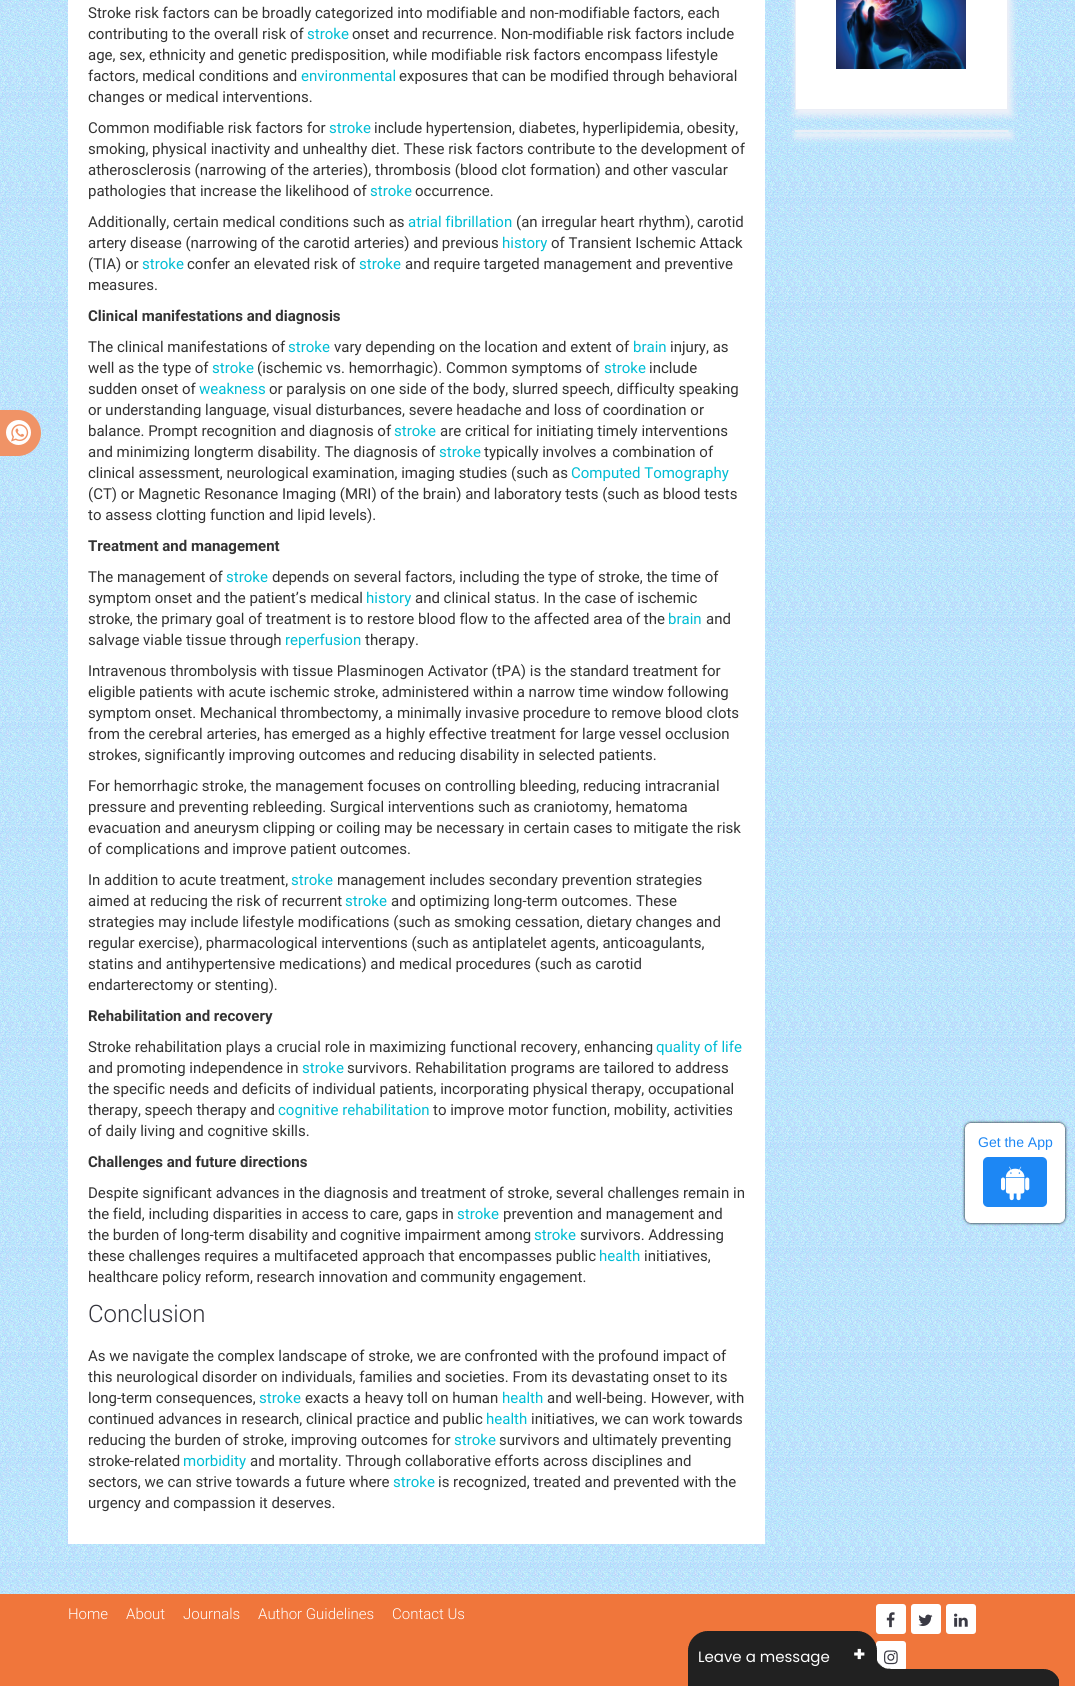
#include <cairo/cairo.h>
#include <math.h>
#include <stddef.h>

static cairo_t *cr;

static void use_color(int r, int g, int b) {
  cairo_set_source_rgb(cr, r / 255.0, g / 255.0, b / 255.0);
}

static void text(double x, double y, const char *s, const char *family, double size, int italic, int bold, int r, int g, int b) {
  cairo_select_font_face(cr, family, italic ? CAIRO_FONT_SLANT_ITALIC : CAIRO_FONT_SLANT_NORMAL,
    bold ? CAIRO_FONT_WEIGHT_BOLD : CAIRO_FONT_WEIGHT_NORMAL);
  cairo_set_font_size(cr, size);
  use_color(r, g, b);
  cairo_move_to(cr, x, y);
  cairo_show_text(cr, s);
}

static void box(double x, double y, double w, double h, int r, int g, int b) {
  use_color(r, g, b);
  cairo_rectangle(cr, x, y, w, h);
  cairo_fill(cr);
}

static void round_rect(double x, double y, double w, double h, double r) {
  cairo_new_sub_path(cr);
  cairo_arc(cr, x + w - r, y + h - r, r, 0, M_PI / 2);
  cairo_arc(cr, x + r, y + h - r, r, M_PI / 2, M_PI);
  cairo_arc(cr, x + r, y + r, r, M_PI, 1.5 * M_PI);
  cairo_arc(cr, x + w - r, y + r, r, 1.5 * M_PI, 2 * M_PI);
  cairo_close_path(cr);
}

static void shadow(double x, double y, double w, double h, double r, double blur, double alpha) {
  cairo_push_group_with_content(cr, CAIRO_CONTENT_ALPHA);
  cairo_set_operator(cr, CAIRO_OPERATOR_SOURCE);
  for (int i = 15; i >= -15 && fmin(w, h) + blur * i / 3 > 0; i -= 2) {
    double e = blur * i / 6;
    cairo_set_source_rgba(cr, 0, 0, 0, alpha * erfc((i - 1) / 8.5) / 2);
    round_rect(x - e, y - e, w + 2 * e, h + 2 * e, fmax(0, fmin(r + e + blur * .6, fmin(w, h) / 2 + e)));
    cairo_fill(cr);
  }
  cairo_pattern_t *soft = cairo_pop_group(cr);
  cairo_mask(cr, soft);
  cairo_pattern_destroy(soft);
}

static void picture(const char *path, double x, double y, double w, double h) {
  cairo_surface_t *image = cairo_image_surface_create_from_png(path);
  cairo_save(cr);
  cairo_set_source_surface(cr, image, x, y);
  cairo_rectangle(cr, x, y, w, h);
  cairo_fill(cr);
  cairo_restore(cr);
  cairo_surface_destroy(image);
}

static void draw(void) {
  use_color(255, 255, 255);
  cairo_paint(cr);
  picture("img_02.png", 0, 0, 1075, 1594);
  use_color(240, 147, 102);
  cairo_new_path(cr);
  cairo_move_to(cr, -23, 410);
  cairo_line_to(cr, 18, 410);
  cairo_curve_to(cr, 30.5, 410, 41, 420.5, 41, 433);
  cairo_curve_to(cr, 41, 445.5, 30.5, 456, 18, 456);
  cairo_line_to(cr, -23, 456);
  cairo_close_path(cr);
  cairo_fill(cr);
  use_color(255, 255, 255);
  cairo_arc(cr, 18.5, 432.5, 12.5, 0, 2 * M_PI);
  cairo_fill(cr);
  picture("img_01.png", 11, 424, 18, 18);
  box(68, 0, 697, 1544, 255, 255, 255);
  use_color(239, 241, 248);
  shadow(795, -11, 217, 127, 0, 3.5, 1);
  use_color(255, 255, 255);
  cairo_rectangle(cr, 795.5, -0.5, 212, 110);
  cairo_fill_preserve(cr);
  use_color(235, 238, 246);
  cairo_set_line_width(cr, 1);
  cairo_stroke(cr);
  picture("img_03.png", 836, 0, 130, 69);
  use_color(239, 241, 248);
  shadow(795, 132, 217, 6, 0, 3.5, 1);
  box(795, 130, 213, 2, 235, 238, 246);
  box(0, 1594, 1075, 92, 240, 118, 59);
  use_color(0, 0, 0);
  shadow(965, 1123, 100, 100, 6, 1.5, 1);
  use_color(255, 255, 255);
  round_rect(965.5, 1123.5, 99, 99, 5.5);
  cairo_fill_preserve(cr);
  cairo_stroke(cr);
  use_color(29, 135, 244);
  round_rect(983, 1157, 64, 50, 5);
  cairo_fill(cr);
  picture("img_04.png", 1001, 1166, 29, 35);
  use_color(255, 255, 255);
  round_rect(876, 1604, 30, 30, 3);
  cairo_fill(cr);
  picture("img_05.png", 886, 1612, 9, 16);
  round_rect(911, 1604, 30, 30, 3);
  cairo_fill(cr);
  picture("img_06.png", 918, 1614, 15, 12);
  round_rect(946, 1604, 30, 30, 3);
  cairo_fill(cr);
  picture("img_07.png", 954, 1613, 14, 14);
  round_rect(876, 1641, 30, 30, 3);
  cairo_fill(cr);
  picture("img_08.png", 884, 1650, 14, 15);
  picture("img_09.png", 688, 1631, 371, 55);
  text(88, 18, "Stroke risk factors can be broadly categorized into modifiable and non-modifiable factors, each", "Roboto", 15, 0, 0, 51, 51, 51);
  text(88, 39, "contributing to the overall risk of", "Roboto", 15, 0, 0, 51, 51, 51);
  text(307, 39, "stroke", "Roboto", 15, 0, 0, 0, 188, 212);
  text(352, 39, "onset and recurrence. Non-modifiable risk factors include", "Roboto", 15, 0, 0, 51, 51, 51);
  text(88, 60, "age, sex, ethnicity and genetic predisposition, while modifiable risk factors encompass lifestyle", "Roboto", 15, 0, 0, 51, 51, 51);
  text(88, 81, "factors, medical conditions and", "Roboto", 15, 0, 0, 51, 51, 51);
  text(301, 81, "environmental", "Roboto", 15, 0, 0, 0, 188, 212);
  text(399, 81, "exposures that can be modified through behavioral", "Roboto", 15, 0, 0, 51, 51, 51);
  text(88, 102, "changes or medical interventions.", "Roboto", 15, 0, 0, 51, 51, 51);
  text(88, 133, "Common modifiable risk factors for", "Roboto", 15, 0, 0, 51, 51, 51);
  text(329, 133, "stroke", "Roboto", 15, 0, 0, 0, 188, 212);
  text(374, 133, "include hypertension, diabetes, hyperlipidemia, obesity,", "Roboto", 15, 0, 0, 51, 51, 51);
  text(88, 154, "smoking, physical inactivity and unhealthy diet. These risk factors contribute to the development of", "Roboto", 15, 0, 0, 51, 51, 51);
  text(88, 175, "atherosclerosis (narrowing of the arteries), thrombosis (blood clot formation) and other vascular", "Roboto", 15, 0, 0, 51, 51, 51);
  text(88, 196, "pathologies that increase the likelihood of", "Roboto", 15, 0, 0, 51, 51, 51);
  text(370, 196, "stroke", "Roboto", 15, 0, 0, 0, 188, 212);
  text(415, 196, "occurrence.", "Roboto", 15, 0, 0, 51, 51, 51);
  text(88, 227, "Additionally, certain medical conditions such as", "Roboto", 15, 0, 0, 51, 51, 51);
  text(408, 227, "atrial fibrillation", "Roboto", 15, 0, 0, 0, 188, 212);
  text(516, 227, "(an irregular heart rhythm), carotid", "Roboto", 15, 0, 0, 51, 51, 51);
  text(88, 248, "artery disease (narrowing of the carotid arteries) and previous", "Roboto", 15, 0, 0, 51, 51, 51);
  text(502, 248, "history", "Roboto", 15, 0, 0, 0, 188, 212);
  text(551, 248, "of Transient Ischemic Attack", "Roboto", 15, 0, 0, 51, 51, 51);
  text(88, 269, "(TIA) or", "Roboto", 15, 0, 0, 51, 51, 51);
  text(142, 269, "stroke", "Roboto", 15, 0, 0, 0, 188, 212);
  text(187, 269, "confer an elevated risk of", "Roboto", 15, 0, 0, 51, 51, 51);
  text(359, 269, "stroke", "Roboto", 15, 0, 0, 0, 188, 212);
  text(405, 269, "and require targeted management and preventive", "Roboto", 15, 0, 0, 51, 51, 51);
  text(88, 290, "measures.", "Roboto", 15, 0, 0, 51, 51, 51);
  text(88, 321, "Clinical manifestations and diagnosis", "Roboto", 15, 0, 1, 51, 51, 51);
  text(88, 352, "The clinical manifestations of", "Roboto", 15, 0, 0, 51, 51, 51);
  text(288, 352, "stroke", "Roboto", 15, 0, 0, 0, 188, 212);
  text(334, 352, "vary depending on the location and extent of", "Roboto", 15, 0, 0, 51, 51, 51);
  text(633, 352, "brain", "Roboto", 15, 0, 0, 0, 188, 212);
  text(670, 352, "injury, as", "Roboto", 15, 0, 0, 51, 51, 51);
  text(88, 373, "well as the type of", "Roboto", 15, 0, 0, 51, 51, 51);
  text(212, 373, "stroke", "Roboto", 15, 0, 0, 0, 188, 212);
  text(257, 373, "(ischemic vs. hemorrhagic). Common symptoms of", "Roboto", 15, 0, 0, 51, 51, 51);
  text(604, 373, "stroke", "Roboto", 15, 0, 0, 0, 188, 212);
  text(649, 373, "include", "Roboto", 15, 0, 0, 51, 51, 51);
  text(88, 394, "sudden onset of", "Roboto", 15, 0, 0, 51, 51, 51);
  text(199, 394, "weakness", "Roboto", 15, 0, 0, 0, 188, 212);
  text(269, 394, "or paralysis on one side of the body, slurred speech, difficulty speaking", "Roboto", 15, 0, 0, 51, 51, 51);
  text(88, 415, "or understanding language, visual disturbances, severe headache and loss of coordination or", "Roboto", 15, 0, 0, 51, 51, 51);
  text(88, 436, "balance. Prompt recognition and diagnosis of", "Roboto", 15, 0, 0, 51, 51, 51);
  text(394, 436, "stroke", "Roboto", 15, 0, 0, 0, 188, 212);
  text(440, 436, "are critical for initiating timely interventions", "Roboto", 15, 0, 0, 51, 51, 51);
  text(88, 457, "and minimizing longterm disability. The diagnosis of", "Roboto", 15, 0, 0, 51, 51, 51);
  text(439, 457, "stroke", "Roboto", 15, 0, 0, 0, 188, 212);
  text(484, 457, "typically involves a combination of", "Roboto", 15, 0, 0, 51, 51, 51);
  text(88, 478, "clinical assessment, neurological examination, imaging studies (such as", "Roboto", 15, 0, 0, 51, 51, 51);
  text(571, 478, "Computed Tomography", "Roboto", 15, 0, 0, 0, 188, 212);
  text(88, 499, "(CT) or Magnetic Resonance Imaging (MRI) of the brain) and laboratory tests (such as blood tests", "Roboto", 15, 0, 0, 51, 51, 51);
  text(88, 520, "to assess clotting function and lipid levels).", "Roboto", 15, 0, 0, 51, 51, 51);
  text(88, 551, "Treatment and management", "Roboto", 15, 0, 1, 51, 51, 51);
  text(88, 582, "The management of", "Roboto", 15, 0, 0, 51, 51, 51);
  text(226, 582, "stroke", "Roboto", 15, 0, 0, 0, 188, 212);
  text(272, 582, "depends on several factors, including the type of stroke, the time of", "Roboto", 15, 0, 0, 51, 51, 51);
  text(88, 603, "symptom onset and the patient’s medical", "Roboto", 15, 0, 0, 51, 51, 51);
  text(366, 603, "history", "Roboto", 15, 0, 0, 0, 188, 212);
  text(415, 603, "and clinical status. In the case of ischemic", "Roboto", 15, 0, 0, 51, 51, 51);
  text(88, 624, "stroke, the primary goal of treatment is to restore blood flow to the affected area of the", "Roboto", 15, 0, 0, 51, 51, 51);
  text(668, 624, "brain", "Roboto", 15, 0, 0, 0, 188, 212);
  text(706, 624, "and", "Roboto", 15, 0, 0, 51, 51, 51);
  text(88, 645, "salvage viable tissue through", "Roboto", 15, 0, 0, 51, 51, 51);
  text(285, 645, "reperfusion", "Roboto", 15, 0, 0, 0, 188, 212);
  text(365, 645, "therapy.", "Roboto", 15, 0, 0, 51, 51, 51);
  text(88, 676, "Intravenous thrombolysis with tissue Plasminogen Activator (tPA) is the standard treatment for", "Roboto", 15, 0, 0, 51, 51, 51);
  text(88, 697, "eligible patients with acute ischemic stroke, administered within a narrow time window following", "Roboto", 15, 0, 0, 51, 51, 51);
  text(88, 718, "symptom onset. Mechanical thrombectomy, a minimally invasive procedure to remove blood clots", "Roboto", 15, 0, 0, 51, 51, 51);
  text(88, 739, "from the cerebral arteries, has emerged as a highly effective treatment for large vessel occlusion", "Roboto", 15, 0, 0, 51, 51, 51);
  text(88, 760, "strokes, significantly improving outcomes and reducing disability in selected patients.", "Roboto", 15, 0, 0, 51, 51, 51);
  text(88, 791, "For hemorrhagic stroke, the management focuses on controlling bleeding, reducing intracranial", "Roboto", 15, 0, 0, 51, 51, 51);
  text(88, 812, "pressure and preventing rebleeding. Surgical interventions such as craniotomy, hematoma", "Roboto", 15, 0, 0, 51, 51, 51);
  text(88, 833, "evacuation and aneurysm clipping or coiling may be necessary in certain cases to mitigate the risk", "Roboto", 15, 0, 0, 51, 51, 51);
  text(88, 854, "of complications and improve patient outcomes.", "Roboto", 15, 0, 0, 51, 51, 51);
  text(88, 885, "In addition to acute treatment,", "Roboto", 15, 0, 0, 51, 51, 51);
  text(291, 885, "stroke", "Roboto", 15, 0, 0, 0, 188, 212);
  text(337, 885, "management includes secondary prevention strategies", "Roboto", 15, 0, 0, 51, 51, 51);
  text(88, 906, "aimed at reducing the risk of recurrent", "Roboto", 15, 0, 0, 51, 51, 51);
  text(345, 906, "stroke", "Roboto", 15, 0, 0, 0, 188, 212);
  text(391, 906, "and optimizing long-term outcomes. These", "Roboto", 15, 0, 0, 51, 51, 51);
  text(88, 927, "strategies may include lifestyle modifications (such as smoking cessation, dietary changes and", "Roboto", 15, 0, 0, 51, 51, 51);
  text(88, 948, "regular exercise), pharmacological interventions (such as antiplatelet agents, anticoagulants,", "Roboto", 15, 0, 0, 51, 51, 51);
  text(88, 969, "statins and antihypertensive medications) and medical procedures (such as carotid", "Roboto", 15, 0, 0, 51, 51, 51);
  text(88, 990, "endarterectomy or stenting).", "Roboto", 15, 0, 0, 51, 51, 51);
  text(88, 1021, "Rehabilitation and recovery", "Roboto", 15, 0, 1, 51, 51, 51);
  text(88, 1052, "Stroke rehabilitation plays a crucial role in maximizing functional recovery, enhancing", "Roboto", 15, 0, 0, 51, 51, 51);
  text(656, 1052, "quality of life", "Roboto", 15, 0, 0, 0, 188, 212);
  text(88, 1073, "and promoting independence in", "Roboto", 15, 0, 0, 51, 51, 51);
  text(302, 1073, "stroke", "Roboto", 15, 0, 0, 0, 188, 212);
  text(347, 1073, "survivors. Rehabilitation programs are tailored to address", "Roboto", 15, 0, 0, 51, 51, 51);
  text(88, 1094, "the specific needs and deficits of individual patients, incorporating physical therapy, occupational", "Roboto", 15, 0, 0, 51, 51, 51);
  text(88, 1115, "therapy, speech therapy and", "Roboto", 15, 0, 0, 51, 51, 51);
  text(278, 1115, "cognitive rehabilitation", "Roboto", 15, 0, 0, 0, 188, 212);
  text(433, 1115, "to improve motor function, mobility, activities", "Roboto", 15, 0, 0, 51, 51, 51);
  text(88, 1136, "of daily living and cognitive skills.", "Roboto", 15, 0, 0, 51, 51, 51);
  text(88, 1167, "Challenges and future directions", "Roboto", 15, 0, 1, 51, 51, 51);
  text(88, 1198, "Despite significant advances in the diagnosis and treatment of stroke, several challenges remain in", "Roboto", 15, 0, 0, 51, 51, 51);
  text(88, 1219, "the field, including disparities in access to care, gaps in", "Roboto", 15, 0, 0, 51, 51, 51);
  text(457, 1219, "stroke", "Roboto", 15, 0, 0, 0, 188, 212);
  text(503, 1219, "prevention and management and", "Roboto", 15, 0, 0, 51, 51, 51);
  text(88, 1240, "the burden of long-term disability and cognitive impairment among", "Roboto", 15, 0, 0, 51, 51, 51);
  text(534, 1240, "stroke", "Roboto", 15, 0, 0, 0, 188, 212);
  text(580, 1240, "survivors. Addressing", "Roboto", 15, 0, 0, 51, 51, 51);
  text(88, 1261, "these challenges requires a multifaceted approach that encompasses public", "Roboto", 15, 0, 0, 51, 51, 51);
  text(599, 1261, "health", "Roboto", 15, 0, 0, 0, 188, 212);
  text(644, 1261, "initiatives,", "Roboto", 15, 0, 0, 51, 51, 51);
  text(88, 1282, "healthcare policy reform, research innovation and community engagement.", "Roboto", 15, 0, 0, 51, 51, 51);
  text(88, 1322, "Conclusion", "Roboto Light", 24, 0, 0, 52, 52, 60);
  text(88, 1361, "As we navigate the complex landscape of stroke, we are confronted with the profound impact of", "Roboto", 15, 0, 0, 51, 51, 51);
  text(88, 1382, "this neurological disorder on individuals, families and societies. From its devastating onset to its", "Roboto", 15, 0, 0, 51, 51, 51);
  text(88, 1403, "long-term consequences,", "Roboto", 15, 0, 0, 51, 51, 51);
  text(259, 1403, "stroke", "Roboto", 15, 0, 0, 0, 188, 212);
  text(305, 1403, "exacts a heavy toll on human", "Roboto", 15, 0, 0, 51, 51, 51);
  text(502, 1403, "health", "Roboto", 15, 0, 0, 0, 188, 212);
  text(547, 1403, "and well-being. However, with", "Roboto", 15, 0, 0, 51, 51, 51);
  text(88, 1424, "continued advances in research, clinical practice and public", "Roboto", 15, 0, 0, 51, 51, 51);
  text(486, 1424, "health", "Roboto", 15, 0, 0, 0, 188, 212);
  text(531, 1424, "initiatives, we can work towards", "Roboto", 15, 0, 0, 51, 51, 51);
  text(88, 1445, "reducing the burden of stroke, improving outcomes for", "Roboto", 15, 0, 0, 51, 51, 51);
  text(454, 1445, "stroke", "Roboto", 15, 0, 0, 0, 188, 212);
  text(499, 1445, "survivors and ultimately preventing", "Roboto", 15, 0, 0, 51, 51, 51);
  text(88, 1466, "stroke-related", "Roboto", 15, 0, 0, 51, 51, 51);
  text(183, 1466, "morbidity", "Roboto", 15, 0, 0, 0, 188, 212);
  text(250, 1466, "and mortality. Through collaborative efforts across disciplines and", "Roboto", 15, 0, 0, 51, 51, 51);
  text(88, 1487, "sectors, we can strive towards a future where", "Roboto", 15, 0, 0, 51, 51, 51);
  text(393, 1487, "stroke", "Roboto", 15, 0, 0, 0, 188, 212);
  text(438, 1487, "is recognized, treated and prevented with the", "Roboto", 15, 0, 0, 51, 51, 51);
  text(88, 1508, "urgency and compassion it deserves.", "Roboto", 15, 0, 0, 51, 51, 51);
  text(978, 1147, "Get the App", "Liberation Sans", 14, 0, 0, 29, 135, 244);
  text(68, 1619, "Home", "Roboto Light", 15, 0, 0, 255, 255, 255);
  text(126, 1619, "About", "Roboto Light", 15, 0, 0, 255, 255, 255);
  text(183, 1619, "Journals", "Roboto Light", 15, 0, 0, 255, 255, 255);
  text(258, 1619, "Author Guidelines", "Roboto Light", 15, 0, 0, 255, 255, 255);
  text(392, 1619, "Contact Us", "Roboto Light", 15, 0, 0, 255, 255, 255);
  text(698, 1662, "Leave a message", "Poppins", 15, 0, 0, 255, 255, 255);
  text(853, 1661, "+", "Poppins", 20, 0, 1, 255, 255, 255);
}

int main(void) {
  cairo_surface_t *surface = cairo_image_surface_create(CAIRO_FORMAT_RGB24, 1075, 1686);
  cr = cairo_create(surface);
  cairo_font_options_t *options = cairo_font_options_create();
  cairo_font_options_set_hint_metrics(options, CAIRO_HINT_METRICS_OFF);
  cairo_font_options_set_hint_style(options, CAIRO_HINT_STYLE_NONE);
  cairo_set_font_options(cr, options);
  cairo_set_miter_limit(cr, 4);
  draw();
  cairo_surface_write_to_png(surface, "out.png");
  cairo_font_options_destroy(options);
  cairo_destroy(cr);
  cairo_surface_destroy(surface);
  return 0;
}
